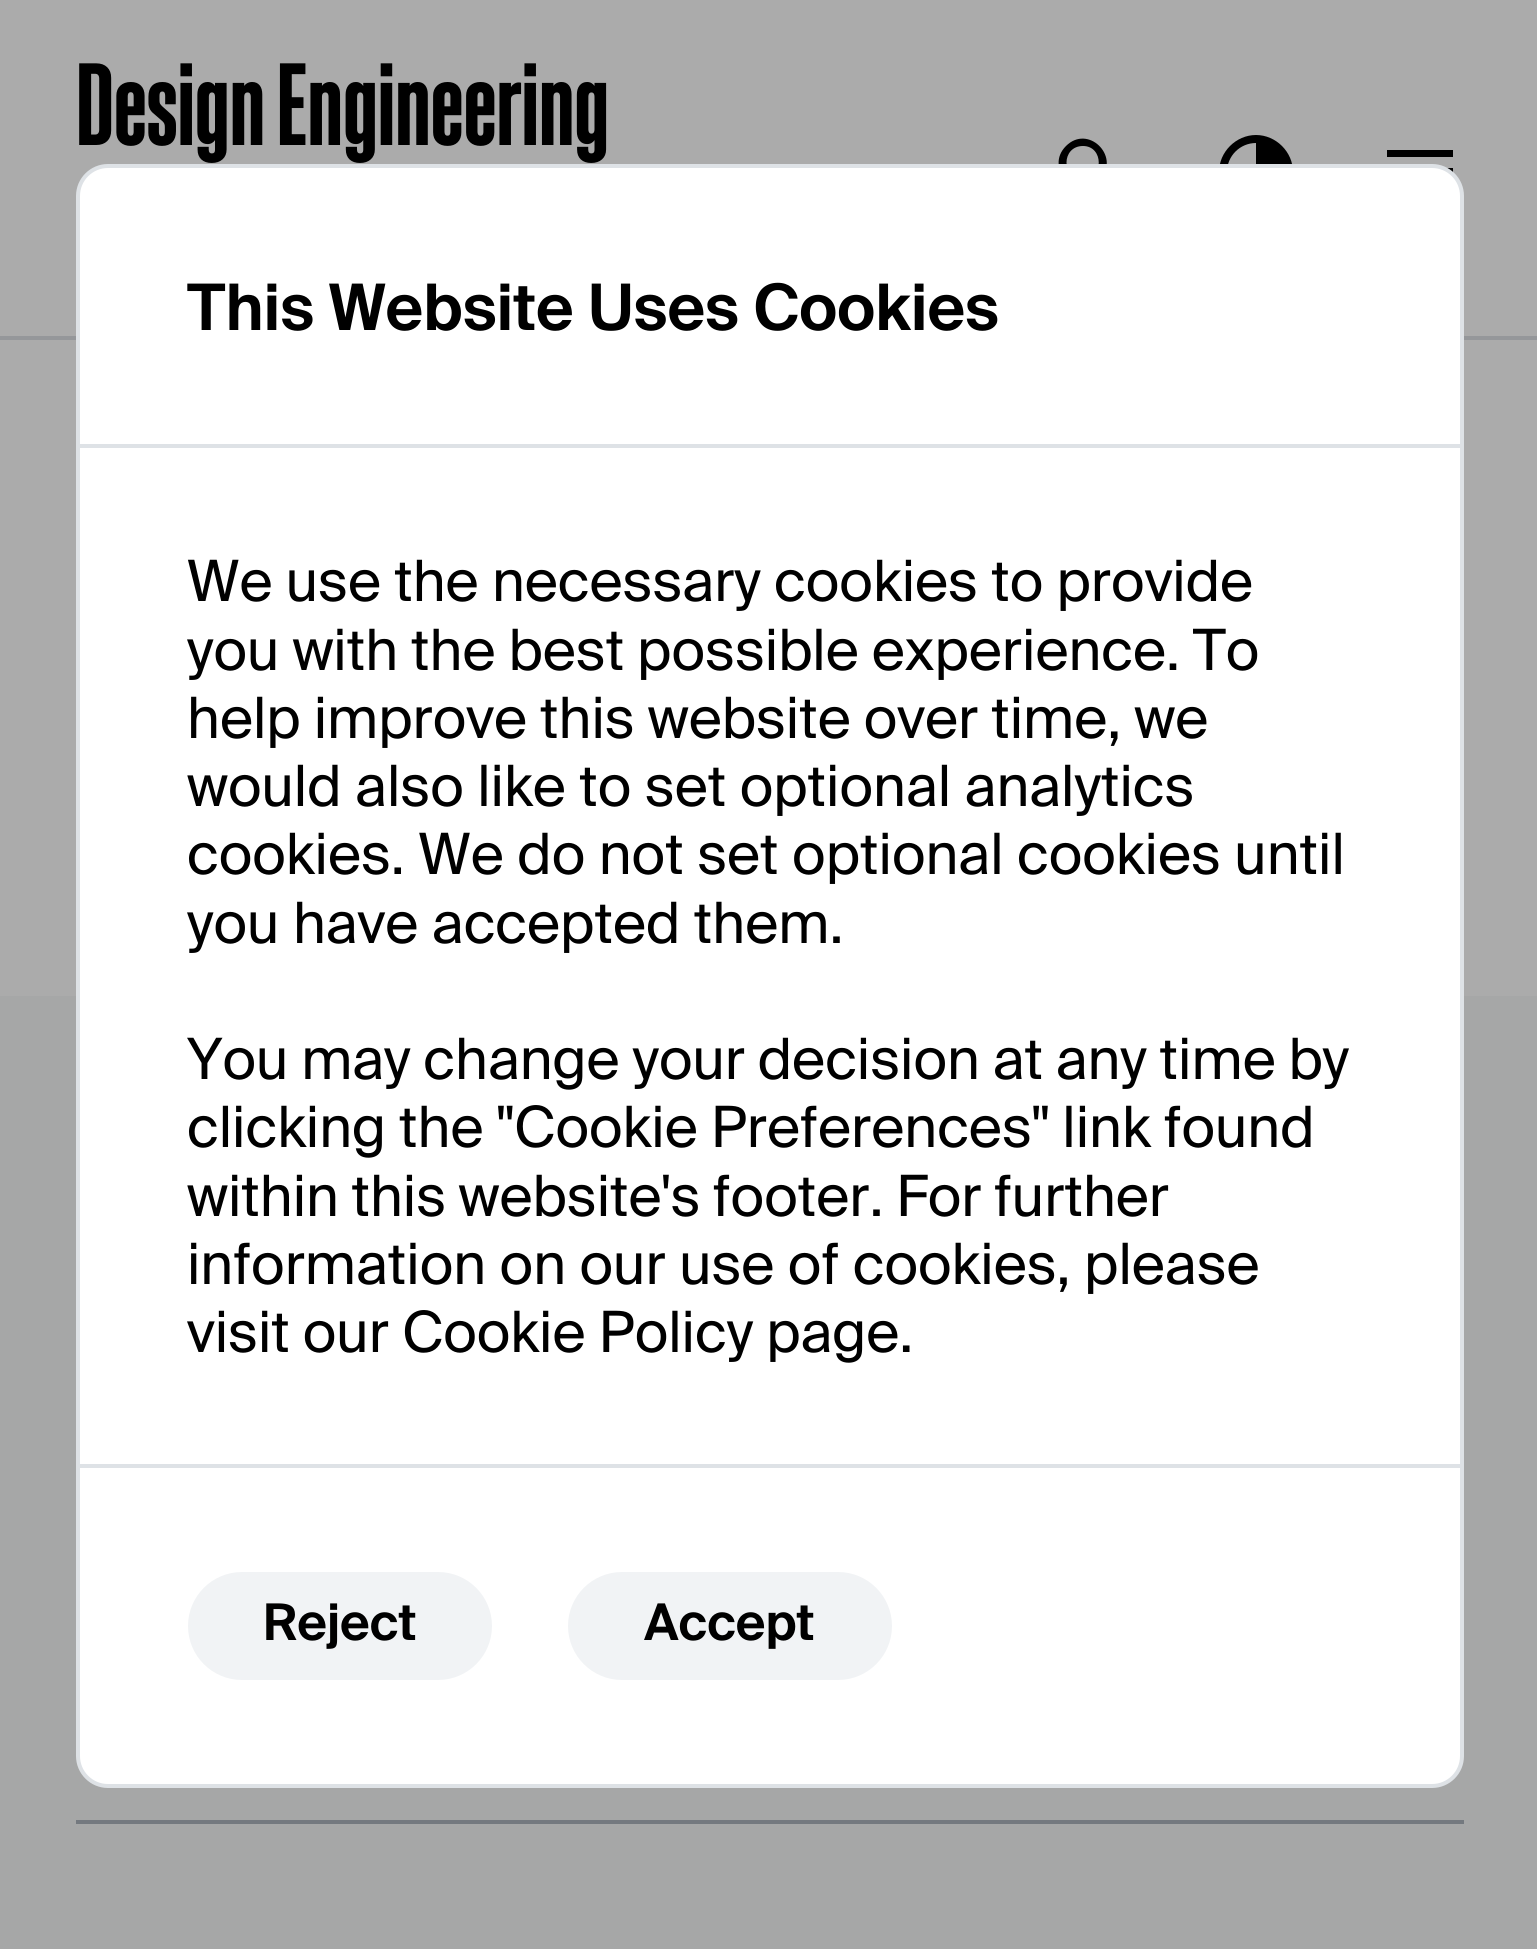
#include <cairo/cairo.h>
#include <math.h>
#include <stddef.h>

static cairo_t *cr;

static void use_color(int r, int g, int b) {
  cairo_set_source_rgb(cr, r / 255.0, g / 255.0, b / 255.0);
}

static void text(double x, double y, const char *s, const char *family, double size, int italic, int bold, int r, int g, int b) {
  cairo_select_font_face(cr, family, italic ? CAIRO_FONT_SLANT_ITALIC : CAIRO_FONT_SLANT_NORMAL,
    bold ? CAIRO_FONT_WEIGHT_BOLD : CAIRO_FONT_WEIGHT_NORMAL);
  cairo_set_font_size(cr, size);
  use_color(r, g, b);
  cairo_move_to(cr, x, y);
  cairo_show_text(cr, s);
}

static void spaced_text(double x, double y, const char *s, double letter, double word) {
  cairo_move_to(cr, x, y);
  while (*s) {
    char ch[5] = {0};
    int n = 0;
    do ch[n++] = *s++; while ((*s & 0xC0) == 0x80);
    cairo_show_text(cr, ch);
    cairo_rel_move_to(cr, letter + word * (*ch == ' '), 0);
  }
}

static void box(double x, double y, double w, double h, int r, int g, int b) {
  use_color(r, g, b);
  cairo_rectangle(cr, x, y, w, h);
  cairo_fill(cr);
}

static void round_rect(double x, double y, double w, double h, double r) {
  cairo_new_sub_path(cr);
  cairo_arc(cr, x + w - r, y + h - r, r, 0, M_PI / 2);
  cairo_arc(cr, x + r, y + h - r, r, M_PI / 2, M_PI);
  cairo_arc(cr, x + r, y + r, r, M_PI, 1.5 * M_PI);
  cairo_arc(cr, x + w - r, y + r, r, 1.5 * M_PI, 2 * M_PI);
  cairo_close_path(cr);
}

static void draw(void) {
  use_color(171, 171, 171);
  cairo_paint(cr);
  use_color(0, 0, 0);
  cairo_new_path(cr);
  cairo_move_to(cr, 1105, 179);
  cairo_line_to(cr, 1102, 179);
  cairo_line_to(cr, 1101, 178);
  cairo_curve_to(cr, 1120, 156, 1088, 124, 1066, 146);
  cairo_curve_to(cr, 1044, 168, 1076, 200, 1098, 181);
  cairo_line_to(cr, 1099, 182);
  cairo_line_to(cr, 1099, 185);
  cairo_line_to(cr, 1118, 203);
  cairo_line_to(cr, 1123, 198);
  cairo_close_path(cr);
  cairo_move_to(cr, 1083, 179);
  cairo_curve_to(cr, 1061, 179, 1061, 146, 1083, 146);
  cairo_curve_to(cr, 1104, 146, 1104, 179, 1083, 179);
  cairo_close_path(cr);
  cairo_fill(cr);
  cairo_new_path(cr);
  cairo_move_to(cr, 1256, 209);
  cairo_curve_to(cr, 1276, 209, 1293, 192, 1293, 172);
  cairo_curve_to(cr, 1293, 152, 1276, 135, 1256, 135);
  cairo_curve_to(cr, 1236, 135, 1219, 152, 1219, 172);
  cairo_curve_to(cr, 1219, 192, 1236, 209, 1256, 209);
  cairo_close_path(cr);
  cairo_move_to(cr, 1256, 201);
  cairo_curve_to(cr, 1240, 201, 1227, 188, 1227, 172);
  cairo_curve_to(cr, 1227, 156, 1240, 143, 1256, 143);
  cairo_close_path(cr);
  cairo_fill(cr);
  box(1387, 150, 66, 7, 0, 0, 0);
  box(1447, 168, 6, 4, 0, 0, 0);
  box(0, 336, 1537, 4, 149, 151, 154);
  box(0, 996, 1537, 953, 166, 167, 167);
  use_color(255, 255, 255);
  round_rect(78, 166, 1384, 1620, 30);
  cairo_fill_preserve(cr);
  use_color(222, 226, 230);
  cairo_set_line_width(cr, 4);
  cairo_stroke(cr);
  box(80, 444, 1380, 4, 222, 226, 230);
  box(80, 1464, 1380, 4, 222, 226, 230);
  use_color(241, 243, 245);
  round_rect(188, 1572, 304, 108, 54);
  cairo_fill(cr);
  round_rect(568, 1572, 324, 108, 54);
  cairo_fill(cr);
  box(76, 1820, 1388, 4, 116, 121, 127);
  text(76, 145, "Design Engineering", "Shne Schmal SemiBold", 113.75, 0, 0, 0, 0, 0);
  text(187, 330, "This Website Uses Cookies", "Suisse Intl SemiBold", 64, 0, 0, 0, 0, 0);
  cairo_select_font_face(cr, "Suisse Intl", CAIRO_FONT_SLANT_NORMAL, CAIRO_FONT_WEIGHT_NORMAL);
  cairo_set_font_size(cr, 56.9);
  spaced_text(187, 601, "We use the necessary cookies to provide", 0, -0.25);
  spaced_text(187, 670, "you with the best possible experience. To", 0, -0.5);
  spaced_text(187, 738, "help improve this website over time, we", 0, -0.5);
  text(187, 806, "would also like to set optional analytics", "Suisse Intl", 56.9, 0, 0, 0, 0, 0);
  text(187, 874, "cookies. We do not set optional cookies until", "Suisse Intl", 56.9, 0, 0, 0, 0, 0);
  text(187, 943, "you have accepted them.", "Suisse Intl", 56.9, 0, 0, 0, 0, 0);
  spaced_text(187, 1079, "You may change your decision at any time by", 0, -0.75);
  spaced_text(187, 1147, "clicking the \"Cookie Preferences\" link found", 0, -0.5);
  spaced_text(187, 1216, "within this website's footer. For further", 0, -1);
  text(187, 1284, "information on our use of cookies, please", "Suisse Intl", 56.9, 0, 0, 0, 0, 0);
  spaced_text(187, 1352, "visit our Cookie Policy page.", 0, -0.5);
  text(263, 1640, "Reject", "Suisse Intl SemiBold", 50.5, 0, 0, 0, 0, 0);
  text(644, 1640, "Accept", "Suisse Intl SemiBold", 50.5, 0, 0, 0, 0, 0);
}

int main(void) {
  cairo_surface_t *surface = cairo_image_surface_create(CAIRO_FORMAT_RGB24, 1537, 1949);
  cr = cairo_create(surface);
  cairo_font_options_t *options = cairo_font_options_create();
  cairo_font_options_set_hint_metrics(options, CAIRO_HINT_METRICS_OFF);
  cairo_font_options_set_hint_style(options, CAIRO_HINT_STYLE_NONE);
  cairo_set_font_options(cr, options);
  cairo_set_miter_limit(cr, 4);
  draw();
  cairo_surface_write_to_png(surface, "out.png");
  cairo_font_options_destroy(options);
  cairo_destroy(cr);
  cairo_surface_destroy(surface);
  return 0;
}
